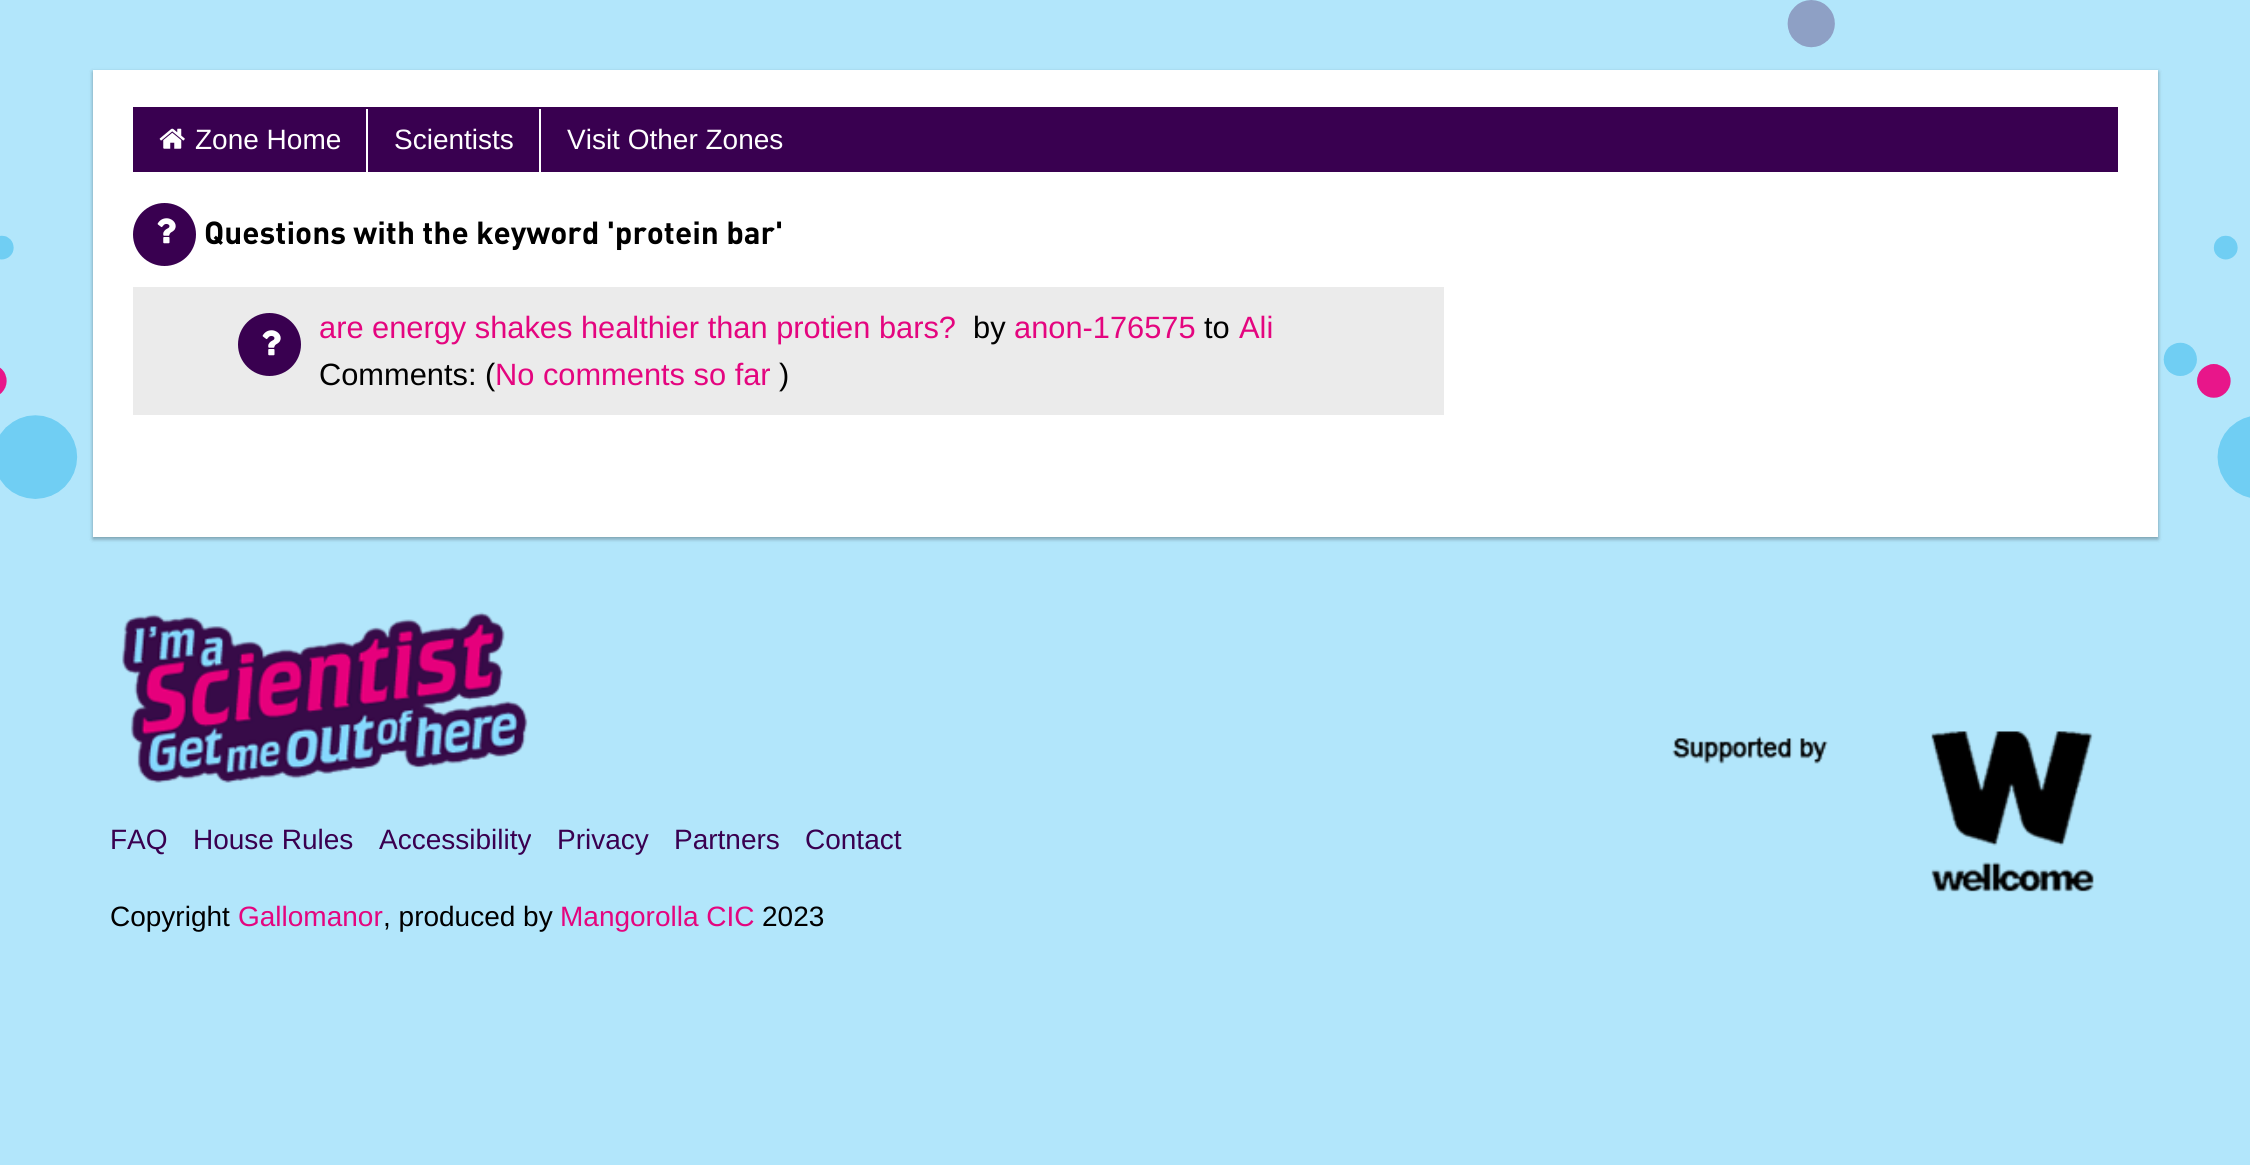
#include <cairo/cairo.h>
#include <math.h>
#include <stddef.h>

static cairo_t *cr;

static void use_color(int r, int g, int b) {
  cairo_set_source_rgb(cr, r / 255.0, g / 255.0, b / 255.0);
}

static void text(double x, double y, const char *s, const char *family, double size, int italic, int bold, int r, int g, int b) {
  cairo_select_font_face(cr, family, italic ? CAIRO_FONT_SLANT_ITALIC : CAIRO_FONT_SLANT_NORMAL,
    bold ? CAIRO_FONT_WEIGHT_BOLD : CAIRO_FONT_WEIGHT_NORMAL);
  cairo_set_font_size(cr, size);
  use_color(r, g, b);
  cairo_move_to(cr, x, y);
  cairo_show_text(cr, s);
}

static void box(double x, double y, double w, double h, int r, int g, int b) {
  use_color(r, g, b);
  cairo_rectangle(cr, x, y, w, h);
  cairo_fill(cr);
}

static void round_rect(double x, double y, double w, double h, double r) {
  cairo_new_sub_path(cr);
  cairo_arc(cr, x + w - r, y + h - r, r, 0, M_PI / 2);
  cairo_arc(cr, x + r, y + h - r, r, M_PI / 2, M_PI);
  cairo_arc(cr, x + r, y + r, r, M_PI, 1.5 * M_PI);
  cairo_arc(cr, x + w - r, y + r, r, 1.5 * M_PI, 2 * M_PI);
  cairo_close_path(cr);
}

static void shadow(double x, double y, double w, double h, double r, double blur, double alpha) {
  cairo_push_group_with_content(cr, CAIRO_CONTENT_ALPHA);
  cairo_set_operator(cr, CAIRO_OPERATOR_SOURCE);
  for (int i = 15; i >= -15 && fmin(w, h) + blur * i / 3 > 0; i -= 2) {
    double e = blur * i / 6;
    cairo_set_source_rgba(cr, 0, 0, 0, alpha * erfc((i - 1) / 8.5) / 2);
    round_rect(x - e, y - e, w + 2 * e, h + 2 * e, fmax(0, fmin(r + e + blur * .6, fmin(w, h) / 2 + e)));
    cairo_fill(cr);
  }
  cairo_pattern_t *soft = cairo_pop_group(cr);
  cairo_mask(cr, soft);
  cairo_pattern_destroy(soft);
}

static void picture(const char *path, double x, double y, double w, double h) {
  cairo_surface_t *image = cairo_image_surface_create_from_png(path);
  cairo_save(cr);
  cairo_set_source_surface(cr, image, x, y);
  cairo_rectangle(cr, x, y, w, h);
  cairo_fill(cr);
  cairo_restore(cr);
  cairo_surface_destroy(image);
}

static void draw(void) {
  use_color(178, 230, 251);
  cairo_paint(cr);
  picture("img_01.png", 0, 0, 2250, 499);
  use_color(0, 0, 0);
  shadow(93, 72, 2065, 467, 0, 2, 0.24);
  shadow(93, 72, 2065, 467, 0, 2.5, 0.12);
  box(93, 70, 2065, 467, 255, 255, 255);
  box(133, 107, 1985, 65, 57, 0, 80);
  picture("img_02.png", 159, 128, 26, 21);
  box(366, 109, 2, 63, 255, 255, 255);
  box(539, 109, 2, 63, 255, 255, 255);
  use_color(57, 0, 80);
  cairo_arc(cr, 164.5, 234.5, 31.5, 0, 2 * M_PI);
  cairo_fill(cr);
  picture("img_03.png", 157, 218, 19, 26);
  box(133, 287, 1311, 128, 235, 235, 235);
  use_color(57, 0, 80);
  cairo_arc(cr, 269.5, 344.5, 31.5, 0, 2 * M_PI);
  cairo_fill(cr);
  picture("img_03.png", 262, 330, 19, 26);
  picture("img_04.png", 122, 612, 406, 171);
  picture("img_05.png", 1672, 731, 422, 161);
  text(195, 149, "Zone Home", "Liberation Sans", 28, 0, 0, 255, 255, 255);
  text(394, 149, "Scientists", "Liberation Sans", 28, 0, 0, 255, 255, 255);
  text(567, 149, "Visit Other Zones", "Liberation Sans", 28, 0, 0, 255, 255, 255);
  text(204, 244, "Questions with the keyword 'protein bar'", "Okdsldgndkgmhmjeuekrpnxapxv", 31.5, 0, 1, 0, 0, 0);
  text(319, 338, "are energy shakes healthier than protien bars?", "Liberation Sans", 30.8, 0, 0, 228, 5, 127);
  text(973, 338, "by", "Liberation Sans", 30.8, 0, 0, 0, 0, 0);
  text(1014, 338, "anon-176575", "Liberation Sans", 30.8, 0, 0, 228, 5, 127);
  text(1204, 338, "to", "Liberation Sans", 30.8, 0, 0, 0, 0, 0);
  text(1239, 338, "Ali", "Liberation Sans", 30.8, 0, 0, 228, 5, 127);
  text(319, 385, "Comments: (", "Liberation Sans", 30.8, 0, 0, 0, 0, 0);
  text(495, 385, "No comments so far", "Liberation Sans", 30.8, 0, 0, 228, 5, 127);
  text(779, 385, ")", "Liberation Sans", 30.8, 0, 0, 0, 0, 0);
  text(110, 849, "FAQ", "Liberation Sans", 28, 0, 0, 57, 0, 80);
  text(193, 849, "House Rules", "Liberation Sans", 28, 0, 0, 57, 0, 80);
  text(379, 849, "Accessibility", "Liberation Sans", 28, 0, 0, 57, 0, 80);
  text(557, 849, "Privacy", "Liberation Sans", 28, 0, 0, 57, 0, 80);
  text(674, 849, "Partners", "Liberation Sans", 28, 0, 0, 57, 0, 80);
  text(805, 849, "Contact", "Liberation Sans", 28, 0, 0, 57, 0, 80);
  text(110, 926, "Copyright", "Liberation Sans", 28, 0, 0, 0, 0, 0);
  text(238, 926, "Gallomanor", "Liberation Sans", 28, 0, 0, 228, 5, 127);
  text(383, 926, ", produced by", "Liberation Sans", 28, 0, 0, 0, 0, 0);
  text(560, 926, "Mangorolla CIC", "Liberation Sans", 28, 0, 0, 228, 5, 127);
  text(762, 926, "2023", "Liberation Sans", 28, 0, 0, 0, 0, 0);
}

int main(void) {
  cairo_surface_t *surface = cairo_image_surface_create(CAIRO_FORMAT_RGB24, 2250, 1165);
  cr = cairo_create(surface);
  cairo_font_options_t *options = cairo_font_options_create();
  cairo_font_options_set_hint_metrics(options, CAIRO_HINT_METRICS_OFF);
  cairo_font_options_set_hint_style(options, CAIRO_HINT_STYLE_NONE);
  cairo_set_font_options(cr, options);
  cairo_set_miter_limit(cr, 4);
  draw();
  cairo_surface_write_to_png(surface, "out.png");
  cairo_font_options_destroy(options);
  cairo_destroy(cr);
  cairo_surface_destroy(surface);
  return 0;
}
